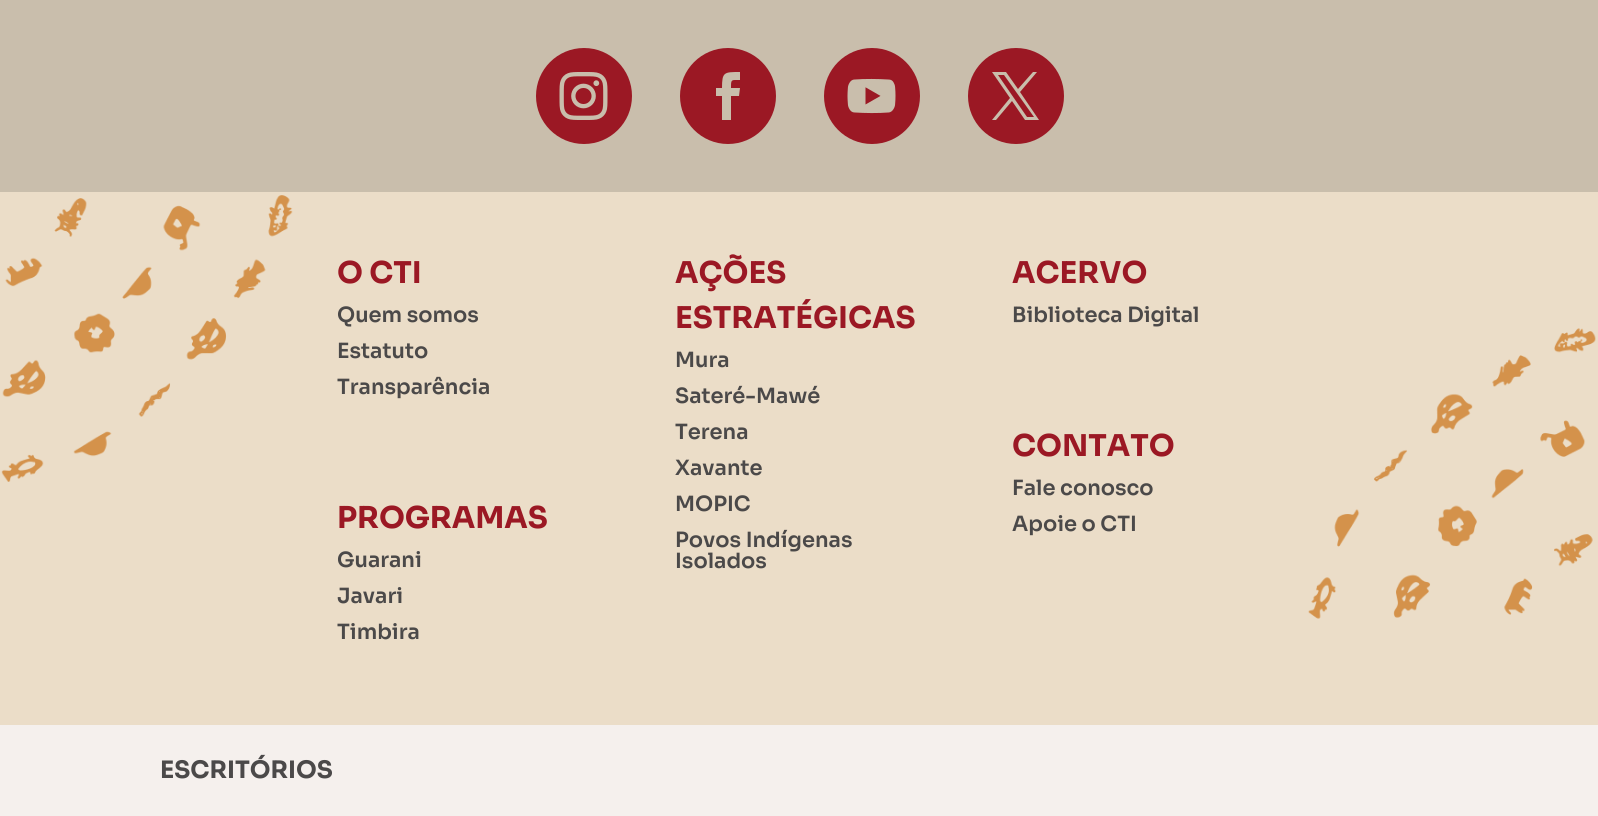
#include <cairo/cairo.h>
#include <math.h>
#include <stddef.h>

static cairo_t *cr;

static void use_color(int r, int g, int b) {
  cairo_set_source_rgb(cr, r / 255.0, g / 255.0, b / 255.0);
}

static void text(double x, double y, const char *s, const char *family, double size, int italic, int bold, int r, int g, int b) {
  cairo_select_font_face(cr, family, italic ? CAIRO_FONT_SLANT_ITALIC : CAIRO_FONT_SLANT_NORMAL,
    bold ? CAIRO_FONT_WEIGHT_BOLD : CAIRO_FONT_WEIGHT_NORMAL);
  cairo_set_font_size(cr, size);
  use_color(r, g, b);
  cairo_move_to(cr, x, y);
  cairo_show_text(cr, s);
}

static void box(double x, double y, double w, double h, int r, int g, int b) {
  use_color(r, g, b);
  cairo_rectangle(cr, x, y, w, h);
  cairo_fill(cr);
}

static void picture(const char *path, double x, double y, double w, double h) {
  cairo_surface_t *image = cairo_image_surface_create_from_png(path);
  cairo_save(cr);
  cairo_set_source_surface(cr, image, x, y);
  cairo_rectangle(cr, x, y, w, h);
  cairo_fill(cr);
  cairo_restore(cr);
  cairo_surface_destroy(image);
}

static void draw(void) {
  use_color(201, 190, 172);
  cairo_paint(cr);
  use_color(155, 24, 36);
  cairo_arc(cr, 584, 96, 48, 0, 2 * M_PI);
  cairo_fill(cr);
  picture("img_01.png", 559, 72, 49, 48);
  cairo_arc(cr, 728, 96, 48, 0, 2 * M_PI);
  cairo_fill(cr);
  use_color(201, 190, 172);
  cairo_new_path(cr);
  cairo_move_to(cr, 722, 120);
  cairo_line_to(cr, 731, 120);
  cairo_line_to(cr, 731, 96);
  cairo_line_to(cr, 739, 96);
  cairo_line_to(cr, 740, 88);
  cairo_line_to(cr, 731, 88);
  cairo_curve_to(cr, 731, 79, 731, 80, 740, 80);
  cairo_line_to(cr, 740, 72);
  cairo_curve_to(cr, 724, 72, 722, 72, 722, 88);
  cairo_line_to(cr, 716, 88);
  cairo_line_to(cr, 716, 96);
  cairo_line_to(cr, 722, 96);
  cairo_close_path(cr);
  cairo_fill(cr);
  use_color(155, 24, 36);
  cairo_arc(cr, 872, 96, 48, 0, 2 * M_PI);
  cairo_fill(cr);
  picture("img_02.png", 847, 78, 49, 36);
  cairo_arc(cr, 1016, 96, 48, 0, 2 * M_PI);
  cairo_fill(cr);
  use_color(201, 190, 172);
  cairo_new_path(cr);
  cairo_move_to(cr, 992, 72);
  cairo_line_to(cr, 1010, 98);
  cairo_line_to(cr, 992, 120);
  cairo_line_to(cr, 996, 120);
  cairo_line_to(cr, 1012, 101);
  cairo_line_to(cr, 1025, 120);
  cairo_line_to(cr, 1039, 120);
  cairo_line_to(cr, 1020, 92);
  cairo_line_to(cr, 1037, 72);
  cairo_line_to(cr, 1033, 72);
  cairo_line_to(cr, 1018, 89);
  cairo_line_to(cr, 1006, 72);
  cairo_close_path(cr);
  cairo_move_to(cr, 998, 75);
  cairo_line_to(cr, 1004, 75);
  cairo_line_to(cr, 1034, 117);
  cairo_line_to(cr, 1027, 117);
  cairo_close_path(cr);
  cairo_fill(cr);
  box(0, 192, 1598, 533, 235, 221, 200);
  picture("img_03.png", 1, 195, 292, 287);
  picture("img_04.png", 1308, 328, 288, 291);
  box(0, 725, 1598, 91, 245, 240, 237);
  text(337, 283, "O CTI", "Sora", 30, 0, 1, 155, 24, 36);
  text(337, 322, "Quem somos", "Sora SemiBold", 21, 0, 0, 75, 73, 73);
  text(337, 358, "Estatuto", "Sora SemiBold", 21, 0, 0, 75, 73, 73);
  text(337, 394, "Transparência", "Sora SemiBold", 21, 0, 0, 75, 73, 73);
  text(337, 528, "PROGRAMAS", "Sora", 30, 0, 1, 155, 24, 36);
  text(337, 567, "Guarani", "Sora SemiBold", 21, 0, 0, 75, 73, 73);
  text(337, 603, "Javari", "Sora SemiBold", 21, 0, 0, 75, 73, 73);
  text(337, 639, "Timbira", "Sora SemiBold", 21, 0, 0, 75, 73, 73);
  text(675, 283, "AÇÕES", "Sora", 30, 0, 1, 155, 24, 36);
  text(675, 328, "ESTRATÉGICAS", "Sora", 30, 0, 1, 155, 24, 36);
  text(675, 367, "Mura", "Sora SemiBold", 21, 0, 0, 75, 73, 73);
  text(675, 403, "Sateré-Mawé", "Sora SemiBold", 21, 0, 0, 75, 73, 73);
  text(675, 439, "Terena", "Sora SemiBold", 21, 0, 0, 75, 73, 73);
  text(675, 475, "Xavante", "Sora SemiBold", 21, 0, 0, 75, 73, 73);
  text(675, 511, "MOPIC", "Sora SemiBold", 21, 0, 0, 75, 73, 73);
  text(675, 547, "Povos Indígenas", "Sora SemiBold", 21, 0, 0, 75, 73, 73);
  text(675, 568, "Isolados", "Sora SemiBold", 21, 0, 0, 75, 73, 73);
  text(1012, 283, "ACERVO", "Sora", 30, 0, 1, 155, 24, 36);
  text(1012, 322, "Biblioteca Digital", "Sora SemiBold", 21, 0, 0, 75, 73, 73);
  text(1012, 456, "CONTATO", "Sora", 30, 0, 1, 155, 24, 36);
  text(1012, 495, "Fale conosco", "Sora SemiBold", 21, 0, 0, 75, 73, 73);
  text(1012, 531, "Apoie o CTI", "Sora SemiBold", 21, 0, 0, 75, 73, 73);
  text(160, 778, "ESCRITÓRIOS", "Sora", 24, 0, 1, 75, 73, 73);
}

int main(void) {
  cairo_surface_t *surface = cairo_image_surface_create(CAIRO_FORMAT_RGB24, 1598, 816);
  cr = cairo_create(surface);
  cairo_font_options_t *options = cairo_font_options_create();
  cairo_font_options_set_hint_metrics(options, CAIRO_HINT_METRICS_OFF);
  cairo_font_options_set_hint_style(options, CAIRO_HINT_STYLE_NONE);
  cairo_set_font_options(cr, options);
  cairo_set_miter_limit(cr, 4);
  draw();
  cairo_surface_write_to_png(surface, "out.png");
  cairo_font_options_destroy(options);
  cairo_destroy(cr);
  cairo_surface_destroy(surface);
  return 0;
}
